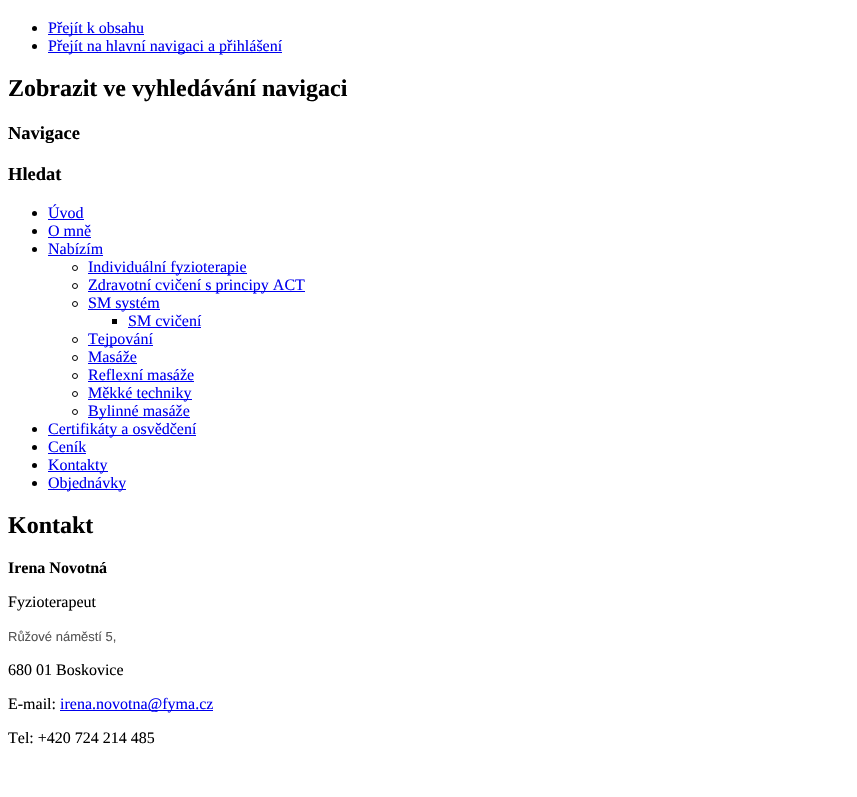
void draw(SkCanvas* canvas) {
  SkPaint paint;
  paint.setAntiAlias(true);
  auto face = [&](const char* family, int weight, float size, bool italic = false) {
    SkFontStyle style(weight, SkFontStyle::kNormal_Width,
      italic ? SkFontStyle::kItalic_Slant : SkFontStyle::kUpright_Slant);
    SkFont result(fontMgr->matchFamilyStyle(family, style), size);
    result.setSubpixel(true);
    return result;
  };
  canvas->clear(0xffffffff);
  paint.setColor(0xff000000);
  canvas->drawCircle(34.5f, 28.5f, 2.5f, paint);
  paint.setColor(0xff0000ee);
  canvas->drawRect(SkRect::MakeXYWH(48, 34, 96, 1), paint);
  paint.setColor(0xff000000);
  canvas->drawCircle(34.5f, 46.5f, 2.5f, paint);
  paint.setColor(0xff0000ee);
  canvas->drawRect(SkRect::MakeXYWH(48, 52, 234, 1), paint);
  paint.setColor(0xff000000);
  canvas->drawCircle(34.5f, 213.5f, 2.5f, paint);
  paint.setColor(0xff0000ee);
  canvas->drawRect(SkRect::MakeXYWH(48, 219, 36, 1), paint);
  paint.setColor(0xff000000);
  canvas->drawCircle(34.5f, 231.5f, 2.5f, paint);
  paint.setColor(0xff0000ee);
  canvas->drawRect(SkRect::MakeXYWH(48, 237, 43, 1), paint);
  paint.setColor(0xff000000);
  canvas->drawCircle(34.5f, 249.5f, 2.5f, paint);
  paint.setColor(0xff0000ee);
  canvas->drawRect(SkRect::MakeXYWH(48, 255, 55, 1), paint);
  paint.setStroke(true);
  paint.setStrokeWidth(1);
  paint.setColor(0xff000000);
  canvas->drawCircle(75, 268, 2.5f, paint);
  paint.setStroke(false);
  paint.setColor(0xff0000ee);
  canvas->drawRect(SkRect::MakeXYWH(88, 273, 159, 1), paint);
  paint.setStroke(true);
  paint.setColor(0xff000000);
  canvas->drawCircle(75, 286, 2.5f, paint);
  paint.setStroke(false);
  paint.setColor(0xff0000ee);
  canvas->drawRect(SkRect::MakeXYWH(88, 291, 217, 1), paint);
  paint.setStroke(true);
  paint.setColor(0xff000000);
  canvas->drawCircle(75, 304, 2.5f, paint);
  paint.setStroke(false);
  {
    const struct { float x, y, w, h; SkColor color; } items[] = {
      {88, 309, 72, 1, 0xff0000ee},
      {112, 319, 5, 5, 0xff000000},
      {128, 327, 73, 1, 0xff0000ee},
    };
    for (auto [x, y, w, h, color] : items) {
      paint.setColor(color);
      canvas->drawRect(SkRect::MakeXYWH(x, y, w, h), paint);
    }
  }
  paint.setStroke(true);
  paint.setColor(0xff000000);
  canvas->drawCircle(75, 340, 2.5f, paint);
  paint.setStroke(false);
  paint.setColor(0xff0000ee);
  canvas->drawRect(SkRect::MakeXYWH(88, 345, 65, 1), paint);
  paint.setStroke(true);
  paint.setColor(0xff000000);
  canvas->drawCircle(75, 358, 2.5f, paint);
  paint.setStroke(false);
  paint.setColor(0xff0000ee);
  canvas->drawRect(SkRect::MakeXYWH(88, 363, 49, 1), paint);
  paint.setStroke(true);
  paint.setColor(0xff000000);
  canvas->drawCircle(75, 376, 2.5f, paint);
  paint.setStroke(false);
  paint.setColor(0xff0000ee);
  canvas->drawRect(SkRect::MakeXYWH(88, 381, 106, 1), paint);
  paint.setStroke(true);
  paint.setColor(0xff000000);
  canvas->drawCircle(75, 394, 2.5f, paint);
  paint.setStroke(false);
  paint.setColor(0xff0000ee);
  canvas->drawRect(SkRect::MakeXYWH(88, 399, 104, 1), paint);
  paint.setStroke(true);
  paint.setColor(0xff000000);
  canvas->drawCircle(75, 412, 2.5f, paint);
  paint.setStroke(false);
  paint.setColor(0xff0000ee);
  canvas->drawRect(SkRect::MakeXYWH(88, 417, 102, 1), paint);
  paint.setColor(0xff000000);
  canvas->drawCircle(34.5f, 429.5f, 2.5f, paint);
  paint.setColor(0xff0000ee);
  canvas->drawRect(SkRect::MakeXYWH(48, 435, 148, 1), paint);
  paint.setColor(0xff000000);
  canvas->drawCircle(34.5f, 447.5f, 2.5f, paint);
  paint.setColor(0xff0000ee);
  canvas->drawRect(SkRect::MakeXYWH(48, 453, 38, 1), paint);
  paint.setColor(0xff000000);
  canvas->drawCircle(34.5f, 465.5f, 2.5f, paint);
  paint.setColor(0xff0000ee);
  canvas->drawRect(SkRect::MakeXYWH(48, 471, 60, 1), paint);
  paint.setColor(0xff000000);
  canvas->drawCircle(34.5f, 483.5f, 2.5f, paint);
  paint.setColor(0xff0000ee);
  canvas->drawRect(SkRect::MakeXYWH(48, 489, 78, 1), paint);
  canvas->drawRect(SkRect::MakeXYWH(60, 710, 153, 1), paint);
  auto f0 = face("Liberation Serif", 400, 16);
  canvas->drawString("Přejít k obsahu", 48, 33, f0, paint);
  canvas->drawString("Přejít na hlavní navigaci a přihlášení", 48, 51, f0, paint);
  auto f1 = face("Liberation Serif", 700, 24);
  paint.setColor(0xff000000);
  canvas->drawString("Zobrazit ve vyhledávání navigaci", 8, 96, f1, paint);
  auto f2 = face("Liberation Serif", 700, 18.5f);
  canvas->drawString("Navigace", 8, 139, f2, paint);
  canvas->drawString("Hledat", 8, 180, f2, paint);
  paint.setColor(0xff0000ee);
  {
    const struct { const char* s; float x, y; } items[] = {
      {"Úvod", 48, 218},
      {"O mně", 48, 236},
      {"Nabízím", 48, 254},
      {"Individuální fyzioterapie", 88, 272},
      {"Zdravotní cvičení s principy ACT", 88, 290},
      {"SM systém", 88, 308},
      {"SM cvičení", 128, 326},
      {"Tejpování", 88, 344},
      {"Masáže", 88, 362},
      {"Reflexní masáže", 88, 380},
      {"Měkké techniky", 88, 398},
      {"Bylinné masáže", 88, 416},
      {"Certifikáty a osvědčení", 48, 434},
      {"Ceník", 48, 452},
      {"Kontakty", 48, 470},
      {"Objednávky", 48, 488},
    };
    for (auto [s, x, y] : items) {
      canvas->drawString(s, x, y, f0, paint);
    }
  }
  paint.setColor(0xff000000);
  canvas->drawString("Kontakt", 8, 533, f1, paint);
  auto f3 = face("Liberation Serif", 700, 16);
  canvas->drawString("Irena Novotná", 8, 573, f3, paint);
  canvas->drawString("Fyzioterapeut", 8, 607, f0, paint);
  auto f4 = face("Liberation Sans", 400, 13);
  paint.setColor(0xff545454);
  canvas->drawString("Růžové náměstí 5,", 8, 641, f4, paint);
  paint.setColor(0xff000000);
  canvas->drawString("680 01 Boskovice", 8, 675, f0, paint);
  canvas->drawString("E-mail:", 8, 709, f0, paint);
  paint.setColor(0xff0000ee);
  canvas->drawString("irena.novotna@fyma.cz", 60, 709, f0, paint);
  paint.setColor(0xff000000);
  canvas->drawString("Tel: +420 724 214 485", 8, 743, f0, paint);
}
